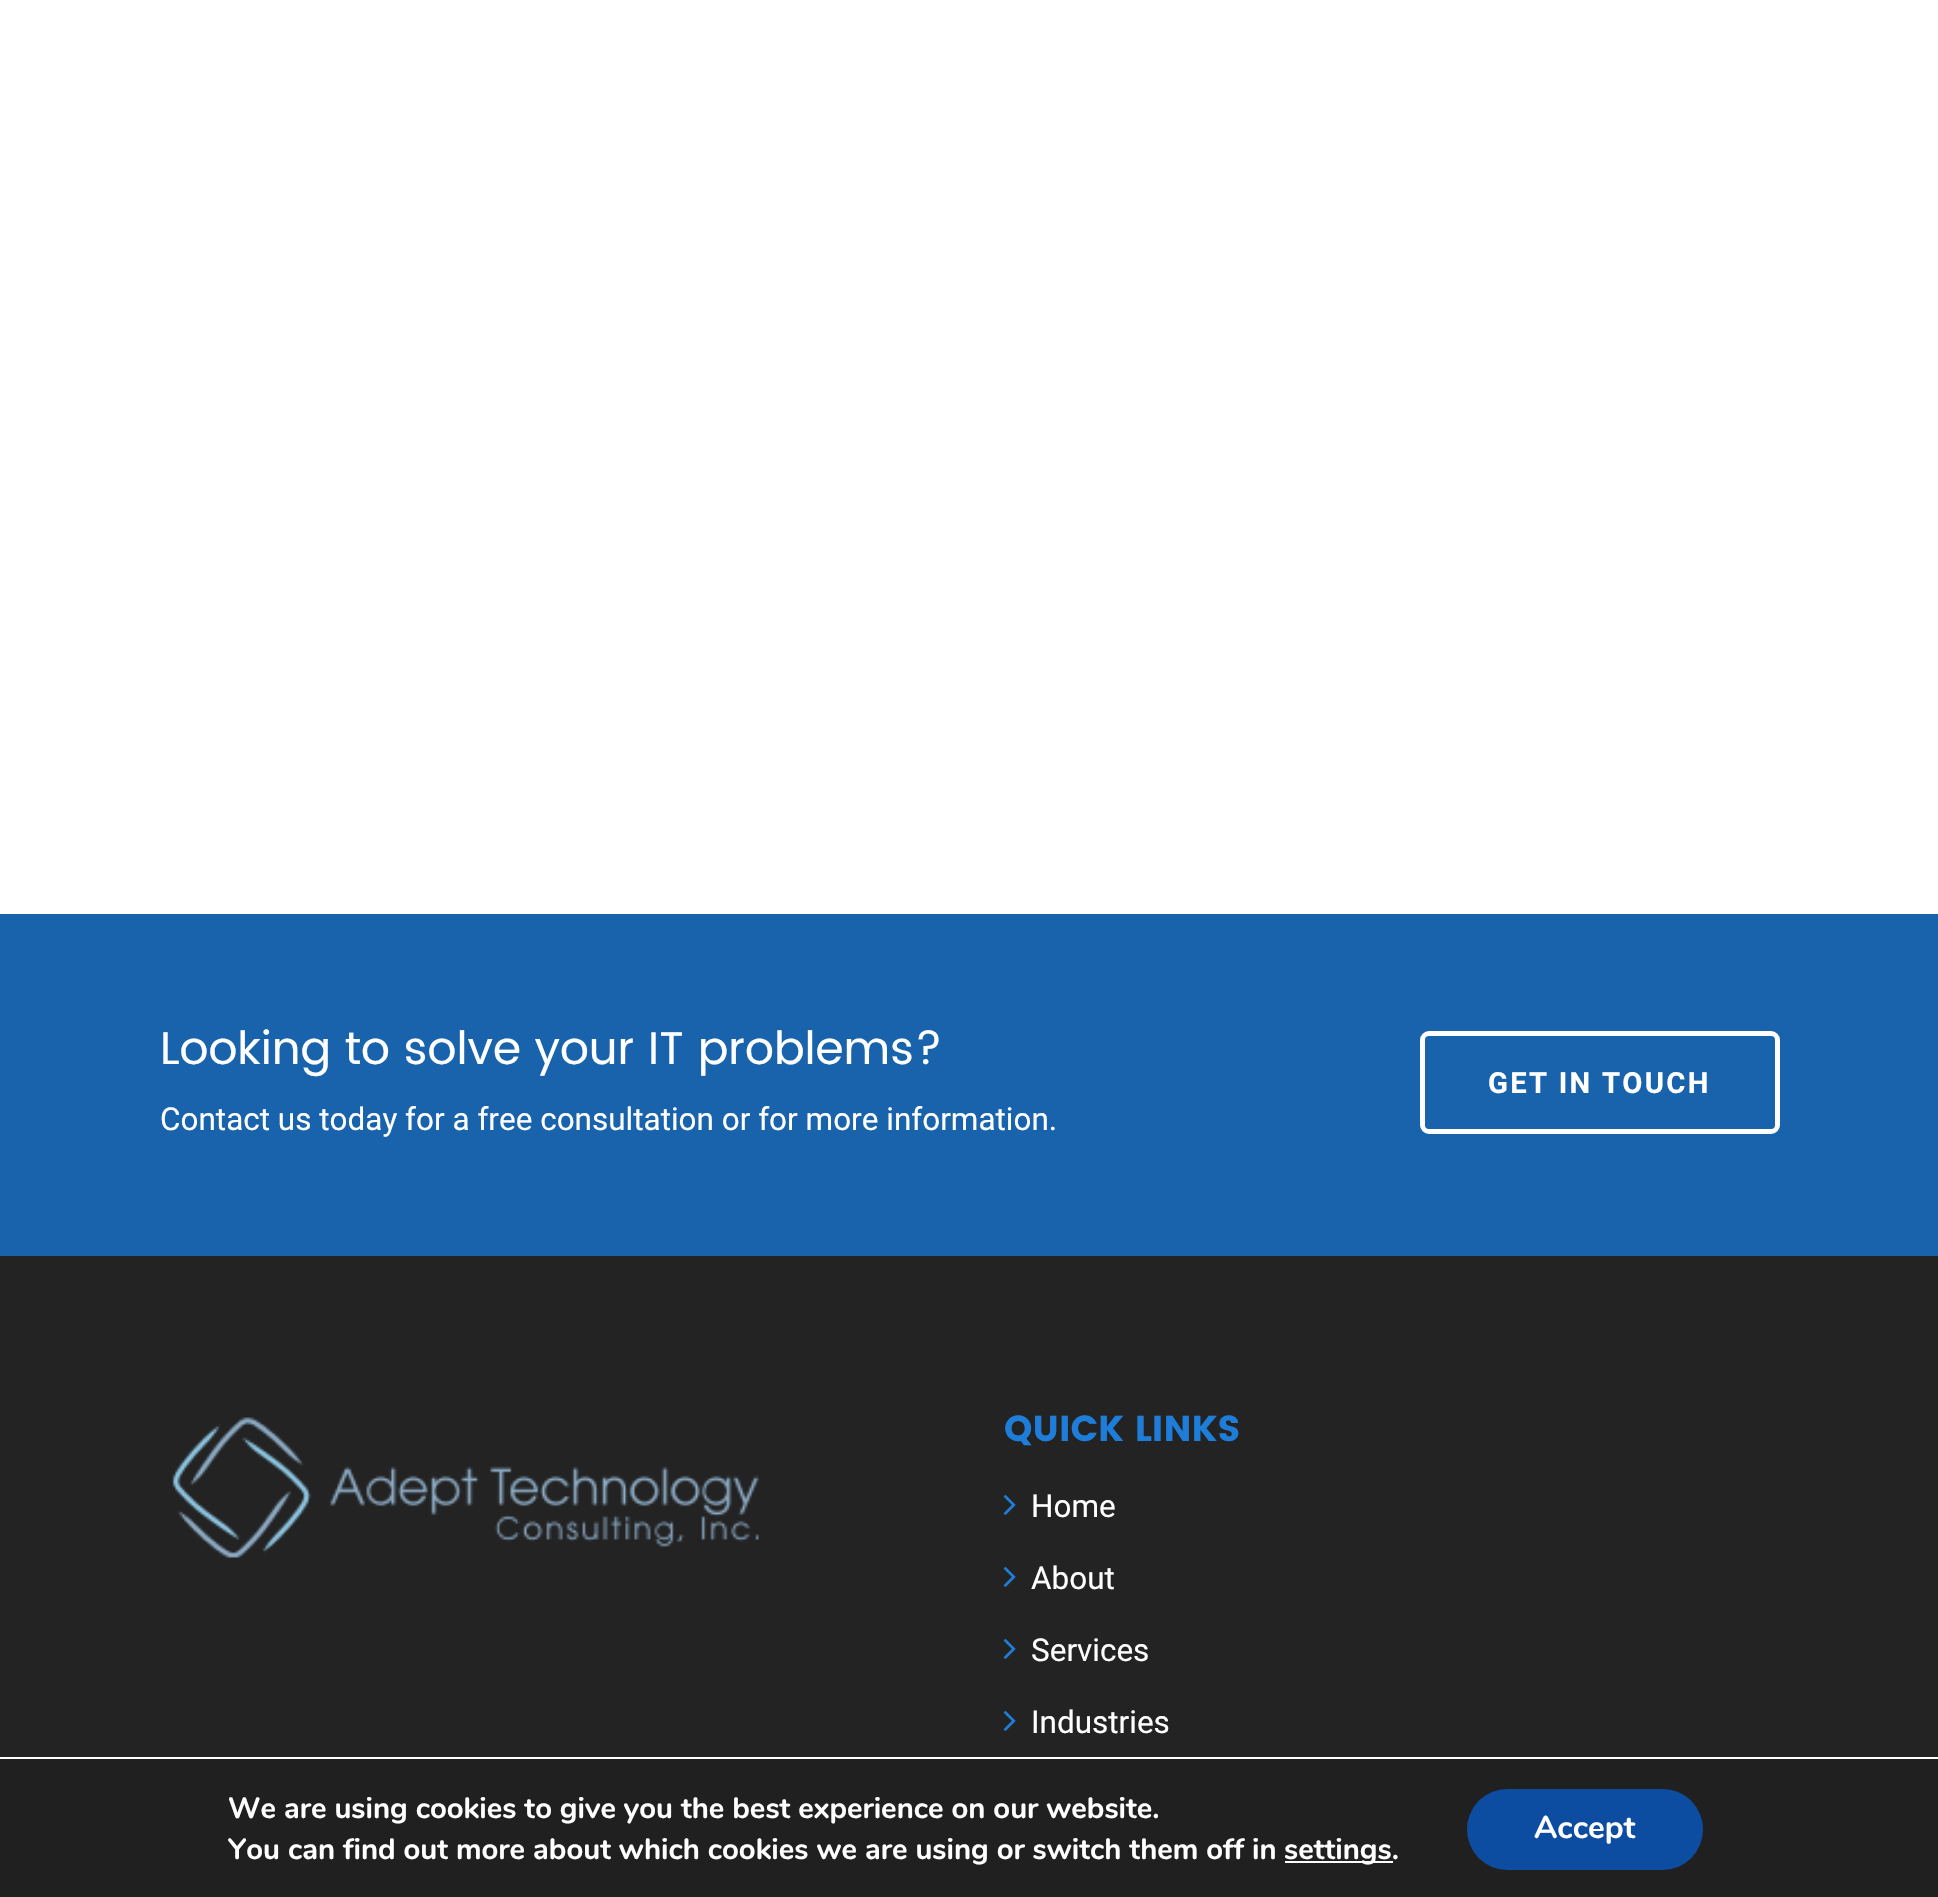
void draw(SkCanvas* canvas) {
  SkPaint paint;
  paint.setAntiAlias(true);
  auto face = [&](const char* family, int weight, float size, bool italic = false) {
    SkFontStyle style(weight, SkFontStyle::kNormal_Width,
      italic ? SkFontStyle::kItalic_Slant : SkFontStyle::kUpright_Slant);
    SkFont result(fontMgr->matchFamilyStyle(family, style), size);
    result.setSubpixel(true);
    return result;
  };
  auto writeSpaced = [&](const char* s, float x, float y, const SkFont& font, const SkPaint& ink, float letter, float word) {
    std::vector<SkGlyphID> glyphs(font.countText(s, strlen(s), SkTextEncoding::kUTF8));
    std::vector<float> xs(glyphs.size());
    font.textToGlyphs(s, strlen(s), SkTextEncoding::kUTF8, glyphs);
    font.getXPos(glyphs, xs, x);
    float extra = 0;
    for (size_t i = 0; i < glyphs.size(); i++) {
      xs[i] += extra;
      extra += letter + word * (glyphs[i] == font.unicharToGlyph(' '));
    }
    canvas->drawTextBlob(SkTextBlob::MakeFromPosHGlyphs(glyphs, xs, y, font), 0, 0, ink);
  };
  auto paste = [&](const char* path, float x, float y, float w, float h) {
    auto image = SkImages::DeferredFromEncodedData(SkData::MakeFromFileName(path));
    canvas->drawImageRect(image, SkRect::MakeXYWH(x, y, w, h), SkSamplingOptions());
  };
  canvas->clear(0xffffffff);
  paint.setColor(0xff1863ab);
  canvas->drawRect(SkRect::MakeXYWH(0, 914, 1938, 342), paint);
  paint.setStroke(true);
  paint.setStrokeWidth(5);
  paint.setColor(0xffffffff);
  canvas->drawRoundRect(SkRect::MakeXYWH(1422.5f, 1033.5f, 355, 98), 6.5f, 6.5f, paint);
  paint.setStroke(false);
  paint.setColor(0xff232323);
  canvas->drawRect(SkRect::MakeXYWH(0, 1256, 1938, 501), paint);
  paste("img/1.png", 172, 1417, 587, 141);
  paste("img/2.png", 1003, 1495, 13, 20);
  paste("img/2.png", 1003, 1567, 13, 20);
  paste("img/2.png", 1003, 1639, 13, 20);
  paste("img/2.png", 1003, 1711, 13, 20);
  paint.setColor(0xff202020);
  canvas->drawRect(SkRect::MakeXYWH(0, 1759, 1938, 138), paint);
  paint.setColor(0xffffffff);
  canvas->drawRect(SkRect::MakeXYWH(1285, 1861, 108, 2), paint);
  paint.setColor(0xff0c4da2);
  canvas->drawRoundRect(SkRect::MakeXYWH(1467, 1789, 236, 81), 40.5f, 40.5f, paint);
  auto f0 = face("Poppins", 400, 45.7f);
  paint.setColor(0xffffffff);
  canvas->drawString("Looking to solve your IT problems?", 160, 1064, f0, paint);
  auto f1 = face("Roboto", 700, 29.25f);
  writeSpaced("GET IN TOUCH", 1488, 1093, f1, paint, 2.25f, 0);
  auto f2 = face("Roboto", 400, 31.5f);
  canvas->drawString("Contact us today for a free consultation or for more information.", 160, 1130, f2, paint);
  auto f3 = face("Poppins", 700, 36);
  paint.setColor(0xff1e7dd8);
  canvas->drawString("QUICK LINKS", 1004, 1441, f3, paint);
  paint.setColor(0xffffffff);
  {
    const struct { const char* s; float x, y; } items[] = {
      {"Home", 1031, 1517},
      {"About", 1031, 1589},
      {"Services", 1031, 1661},
      {"Industries", 1031, 1733},
    };
    for (auto [s, x, y] : items) {
      canvas->drawString(s, x, y, f2, paint);
    }
  }
  auto f4 = face("Nunito", 700, 29.25f);
  {
    const struct { const char* s; float x, y; } items[] = {
      {"We are using cookies to give you the best experience on our website.", 228, 1818},
      {"You can find out more about which cookies we are using or switch them off in", 228, 1859},
      {"settings.", 1284, 1859},
    };
    for (auto [s, x, y] : items) {
      canvas->drawString(s, x, y, f4, paint);
    }
  }
  auto f5 = face("Nunito", 700, 31.5f);
  canvas->drawString("Accept", 1534, 1838, f5, paint);
}
